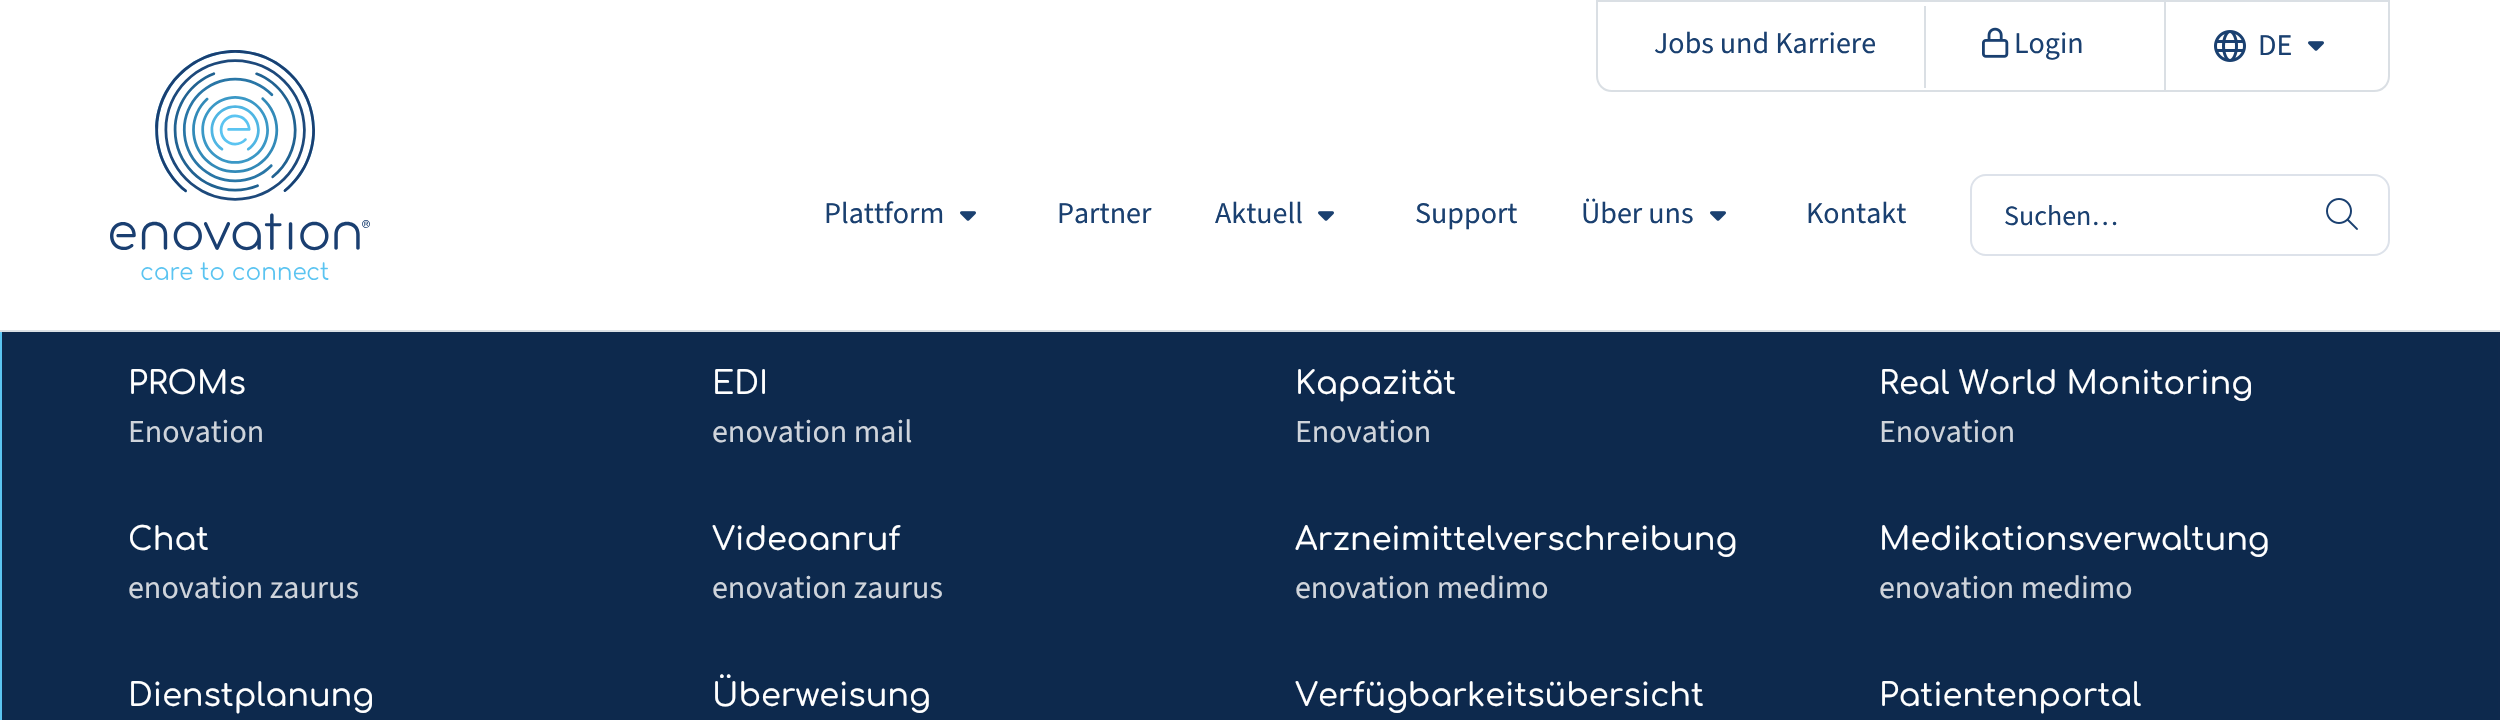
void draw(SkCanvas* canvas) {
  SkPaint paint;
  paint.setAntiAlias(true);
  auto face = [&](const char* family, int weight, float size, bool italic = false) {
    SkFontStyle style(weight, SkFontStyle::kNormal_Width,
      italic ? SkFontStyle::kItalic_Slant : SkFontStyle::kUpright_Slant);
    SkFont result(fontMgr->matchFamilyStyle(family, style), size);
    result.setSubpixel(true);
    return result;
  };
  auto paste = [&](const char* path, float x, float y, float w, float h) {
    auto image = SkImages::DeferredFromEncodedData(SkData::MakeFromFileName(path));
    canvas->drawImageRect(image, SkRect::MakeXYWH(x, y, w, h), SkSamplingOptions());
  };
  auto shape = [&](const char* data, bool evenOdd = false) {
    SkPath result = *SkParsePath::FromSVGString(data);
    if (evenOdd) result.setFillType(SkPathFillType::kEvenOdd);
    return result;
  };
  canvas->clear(0xff0d294d);
  paint.setStroke(true);
  paint.setStrokeWidth(2);
  paint.setColor(0xff5bc5f2);
  canvas->drawRect(SkRect::MakeXYWH(1, -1, 2498, 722), paint);
  paint.setStroke(false);
  paint.setColor(0xffffffff);
  canvas->drawRect(SkRect::MakeXYWH(0, 0, 2500, 330), paint);
  paint.setColor(0xffdadfe4);
  canvas->drawRect(SkRect::MakeXYWH(0, 330, 2500, 2), paint);
  paste("img/1.png", 110, 50, 260, 230);
  paint.setStroke(true);
  canvas->drawPath(shape("M1597 1H2389V76C2389 84.5 2382.5 91 2374 91H1612C1603.5 91 1597 84.5 1597 76Z"), paint);
  paint.setStroke(false);
  canvas->drawRect(SkRect::MakeXYWH(1924, 6, 2, 82), paint);
  paste("img/2.png", 1982, 27, 27, 31);
  canvas->drawRect(SkRect::MakeXYWH(2164, 2, 2, 88), paint);
  paste("img/3.png", 2214, 30, 32, 32);
  paste("img/4.png", 2308, 41, 16, 10);
  paste("img/4.png", 960, 211, 16, 10);
  paste("img/4.png", 1318, 211, 16, 10);
  paste("img/4.png", 1710, 211, 16, 10);
  paint.setStroke(true);
  paint.setColor(0xffdde2ea);
  canvas->drawRoundRect(SkRect::MakeXYWH(1971, 175, 418, 80), 15, 15, paint);
  paste("img/5.png", 2326, 198, 32, 32);
  paint.setStroke(false);
  paint.setColor(0xff0e294d);
  canvas->drawRect(SkRect::MakeXYWH(2498, 332, 2, 388), paint);
  auto f0 = face("Source Sans 3", 400, 30);
  paint.setColor(0xff1a4070);
  {
    const struct { const char* s; float x, y; } items[] = {
      {"Jobs und Karriere", 1654, 53},
      {"Login", 2014, 53},
      {"DE", 2258, 55},
      {"Plattform", 824, 223},
      {"Partner", 1057, 223},
      {"Aktuell", 1215, 223},
      {"Support", 1415, 223},
      {"Über uns", 1581, 223},
      {"Kontakt", 1806, 223},
    };
    for (auto [s, x, y] : items) {
      canvas->drawString(s, x, y, f0, paint);
    }
  }
  auto f1 = face("Source Sans 3", 400, 28);
  canvas->drawString("Suchen…", 2004, 225, f1, paint);
  auto f2 = face("Comfortaa", 500, 32);
  paint.setColor(0xffffffff);
  canvas->drawString("PROMs", 128, 394, f2, paint);
  auto f3 = face("Source Sans 3", 400, 32);
  paint.setColor(0xffcfd4db);
  canvas->drawString("Enovation", 128, 442, f3, paint);
  paint.setColor(0xffffffff);
  canvas->drawString("EDI", 712, 394, f2, paint);
  paint.setColor(0xffcfd4db);
  canvas->drawString("enovation mail", 712, 442, f3, paint);
  paint.setColor(0xffffffff);
  canvas->drawString("Kapazität", 1295, 394, f2, paint);
  paint.setColor(0xffcfd4db);
  canvas->drawString("Enovation", 1295, 442, f3, paint);
  paint.setColor(0xffffffff);
  canvas->drawString("Real World Monitoring", 1879, 394, f2, paint);
  paint.setColor(0xffcfd4db);
  canvas->drawString("Enovation", 1879, 442, f3, paint);
  paint.setColor(0xffffffff);
  canvas->drawString("Chat", 128, 550, f2, paint);
  paint.setColor(0xffcfd4db);
  canvas->drawString("enovation zaurus", 128, 598, f3, paint);
  paint.setColor(0xffffffff);
  canvas->drawString("Videoanruf", 712, 550, f2, paint);
  paint.setColor(0xffcfd4db);
  canvas->drawString("enovation zaurus", 712, 598, f3, paint);
  paint.setColor(0xffffffff);
  canvas->drawString("Arzneimittelverschreibung", 1295, 550, f2, paint);
  paint.setColor(0xffcfd4db);
  canvas->drawString("enovation medimo", 1295, 598, f3, paint);
  paint.setColor(0xffffffff);
  canvas->drawString("Medikationsverwaltung", 1879, 550, f2, paint);
  paint.setColor(0xffcfd4db);
  canvas->drawString("enovation medimo", 1879, 598, f3, paint);
  paint.setColor(0xffffffff);
  {
    const struct { const char* s; float x, y; } items[] = {
      {"Dienstplanung", 128, 706},
      {"Überweisung", 712, 706},
      {"Verfügbarkeitsübersicht", 1295, 706},
      {"Patientenportal", 1879, 706},
    };
    for (auto [s, x, y] : items) {
      canvas->drawString(s, x, y, f2, paint);
    }
  }
}
